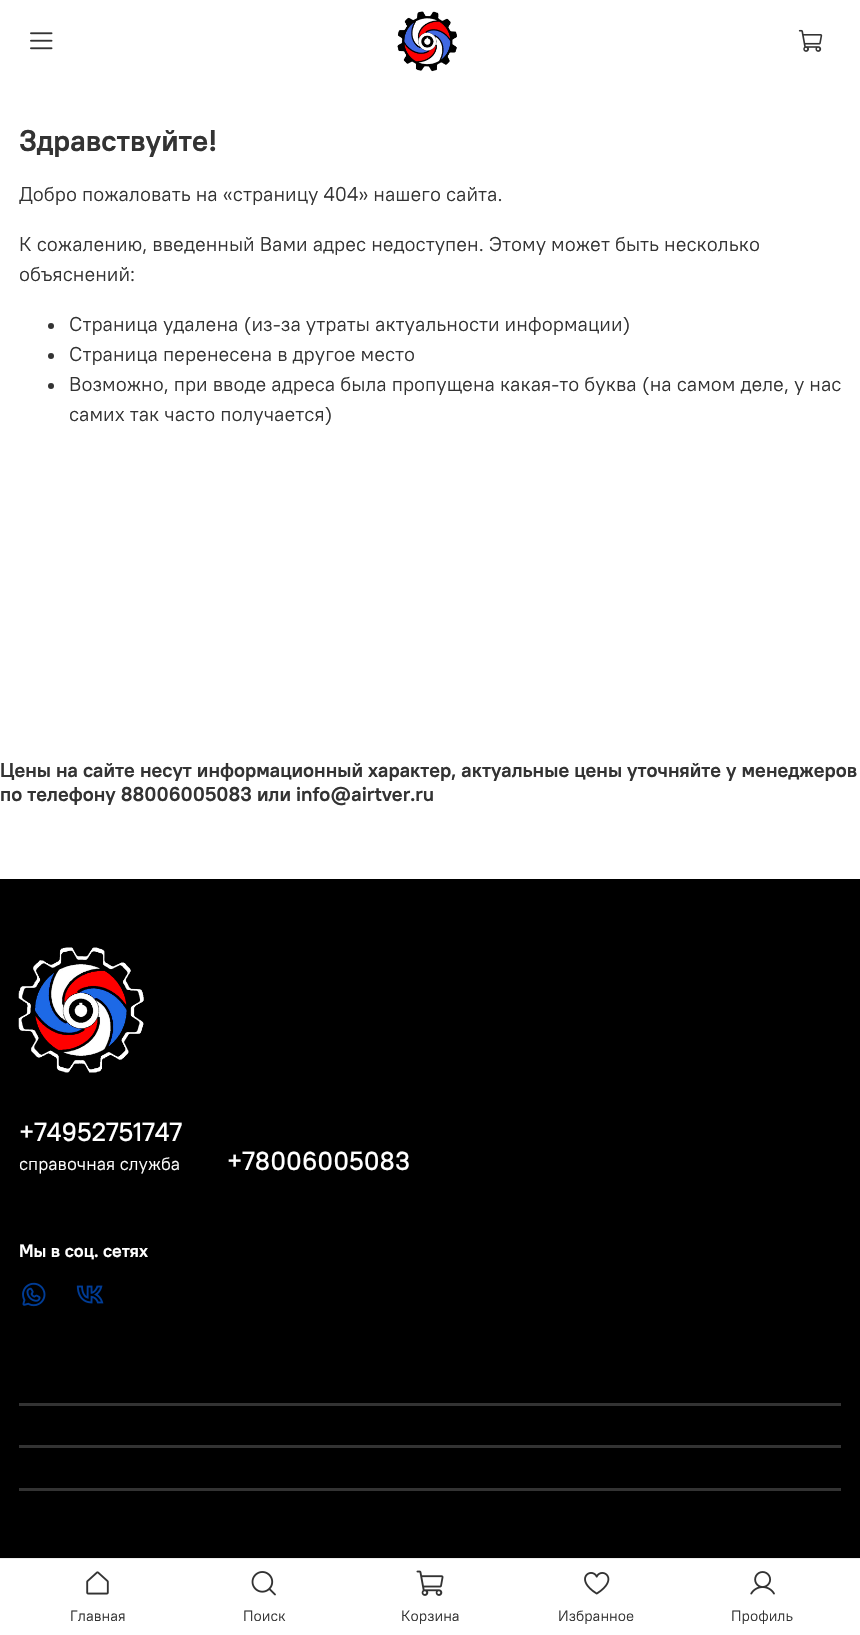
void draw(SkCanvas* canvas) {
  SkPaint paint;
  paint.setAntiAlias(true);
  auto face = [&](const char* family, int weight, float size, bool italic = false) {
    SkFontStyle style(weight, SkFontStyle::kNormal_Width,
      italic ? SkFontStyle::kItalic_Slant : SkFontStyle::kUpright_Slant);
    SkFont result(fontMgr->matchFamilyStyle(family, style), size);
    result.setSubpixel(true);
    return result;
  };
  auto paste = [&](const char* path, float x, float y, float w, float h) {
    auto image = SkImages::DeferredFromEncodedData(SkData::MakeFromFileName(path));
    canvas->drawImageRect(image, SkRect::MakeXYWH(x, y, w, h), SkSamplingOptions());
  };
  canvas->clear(0xffffffff);
  paste("img/1.png", 30, 32, 23, 18);
  paste("img/2.png", 397, 11, 60, 61);
  paste("img/3.png", 798, 29, 25, 23);
  paint.setColor(0xff333333);
  canvas->drawCircle(51, 326, 3, paint);
  canvas->drawCircle(51, 356, 3, paint);
  canvas->drawCircle(51, 386, 3, paint);
  paint.setColor(0xff000000);
  canvas->drawRect(SkRect::MakeXYWH(0, 879, 860, 679), paint);
  paste("img/4.png", 18, 947, 126, 126);
  paste("img/5.png", 22, 1282, 24, 25);
  paste("img/6.png", 76, 1285, 28, 19);
  {
    const struct { float x, y, w, h; SkColor color; } items[] = {
      {19, 1403, 822, 3, 0xff333333},
      {19, 1445, 822, 3, 0xff333333},
      {19, 1488, 822, 3, 0xff333333},
      {0, 1558, 860, 1, 0xffededed},
    };
    for (auto [x, y, w, h, color] : items) {
      paint.setColor(color);
      canvas->drawRect(SkRect::MakeXYWH(x, y, w, h), paint);
    }
  }
  paste("img/7.png", 86, 1571, 23, 24);
  paste("img/8.png", 251, 1571, 25, 25);
  paste("img/9.png", 416, 1570, 28, 26);
  paste("img/10.png", 584, 1572, 26, 23);
  paste("img/11.png", 750, 1571, 25, 24);
  auto f0 = face("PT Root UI", 700, 30);
  paint.setColor(0xff333333);
  canvas->drawString("Здравствуйте!", 19, 151, f0, paint);
  auto f1 = face("PT Root UI", 400, 20);
  {
    const struct { const char* s; float x, y; } items[] = {
      {"Добро пожаловать на «страницу 404» нашего сайта.", 19, 201},
      {"К сожалению, введенный Вами адрес недоступен. Этому может быть несколько", 19, 251},
      {"объяснений:", 19, 281},
      {"Страница удалена (из-за утраты актуальности информации)", 69, 331},
      {"Страница перенесена в другое место", 69, 361},
      {"Возможно, при вводе адреса была пропущена какая-то буква (на самом деле, у нас", 69, 391},
      {"самих так часто получается)", 69, 421},
    };
    for (auto [s, x, y] : items) {
      canvas->drawString(s, x, y, f1, paint);
    }
  }
  auto f2 = face("PT Root UI", 700, 20);
  canvas->drawString("Цены на сайте несут информационный характер, актуальные цены уточняйте у менеджеров", 0, 777, f2, paint);
  canvas->drawString("по телефону 88006005083 или info@airtver.ru", 0, 801, f2, paint);
  auto f3 = face("PT Root UI", 500, 26);
  paint.setColor(0xffffffff);
  canvas->drawString("+74952751747", 19, 1141, f3, paint);
  auto f4 = face("PT Root UI", 400, 18);
  canvas->drawString("справочная служба", 19, 1170, f4, paint);
  canvas->drawString("+78006005083", 227, 1170, f3, paint);
  auto f5 = face("PT Root UI", 700, 18);
  canvas->drawString("Мы в соц. сетях", 19, 1257, f5, paint);
  auto f6 = face("PT Root UI", 400, 15);
  paint.setColor(0xff333333);
  {
    const struct { const char* s; float x, y; } items[] = {
      {"Главная", 70, 1621},
      {"Поиск", 243, 1621},
      {"Корзина", 401, 1621},
      {"Избранное", 558, 1621},
      {"Профиль", 731, 1621},
    };
    for (auto [s, x, y] : items) {
      canvas->drawString(s, x, y, f6, paint);
    }
  }
}
